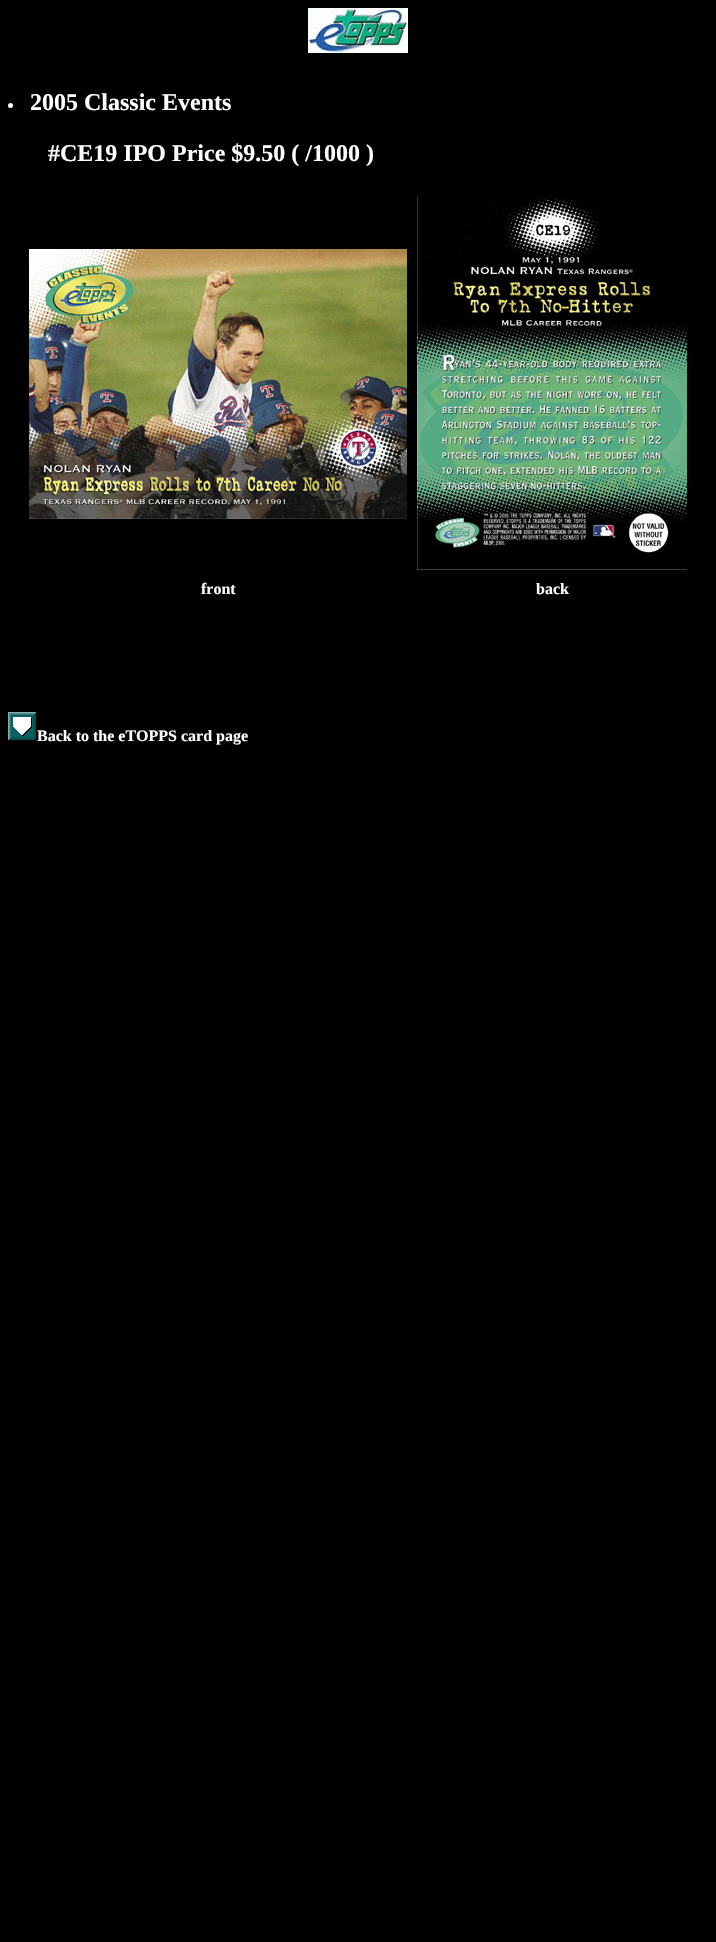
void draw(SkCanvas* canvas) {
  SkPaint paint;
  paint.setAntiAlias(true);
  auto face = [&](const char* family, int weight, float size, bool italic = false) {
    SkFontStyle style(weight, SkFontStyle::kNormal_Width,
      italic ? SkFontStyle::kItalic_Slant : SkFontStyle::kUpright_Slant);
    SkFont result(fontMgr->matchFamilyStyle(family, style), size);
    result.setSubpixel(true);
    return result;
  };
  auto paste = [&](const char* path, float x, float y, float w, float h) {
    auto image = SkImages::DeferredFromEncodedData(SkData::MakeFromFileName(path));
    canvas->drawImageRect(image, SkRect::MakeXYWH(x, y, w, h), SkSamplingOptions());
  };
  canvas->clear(0xff000000);
  paste("img/1.png", 308, 8, 100, 45);
  paint.setColor(0xffffffff);
  canvas->drawCircle(10.5f, 105.5f, 2.5f, paint);
  paste("img/2.png", 29, 249, 378, 270);
  paste("img/3.png", 417, 197, 270, 373);
  paste("img/4.png", 8, 712, 29, 29);
  auto f0 = face("Liberation Serif", 700, 24);
  canvas->drawString("2005 Classic Events", 30, 110, f0, paint);
  canvas->drawString("#CE19 IPO Price $9.50 ( /1000 )", 48, 161, f0, paint);
  auto f1 = face("Liberation Serif", 700, 16);
  {
    const struct { const char* s; float x, y; } items[] = {
      {"front", 201, 594},
      {"back", 536, 594},
      {"Back to the eTOPPS card page", 37, 741},
    };
    for (auto [s, x, y] : items) {
      canvas->drawString(s, x, y, f1, paint);
    }
  }
}
